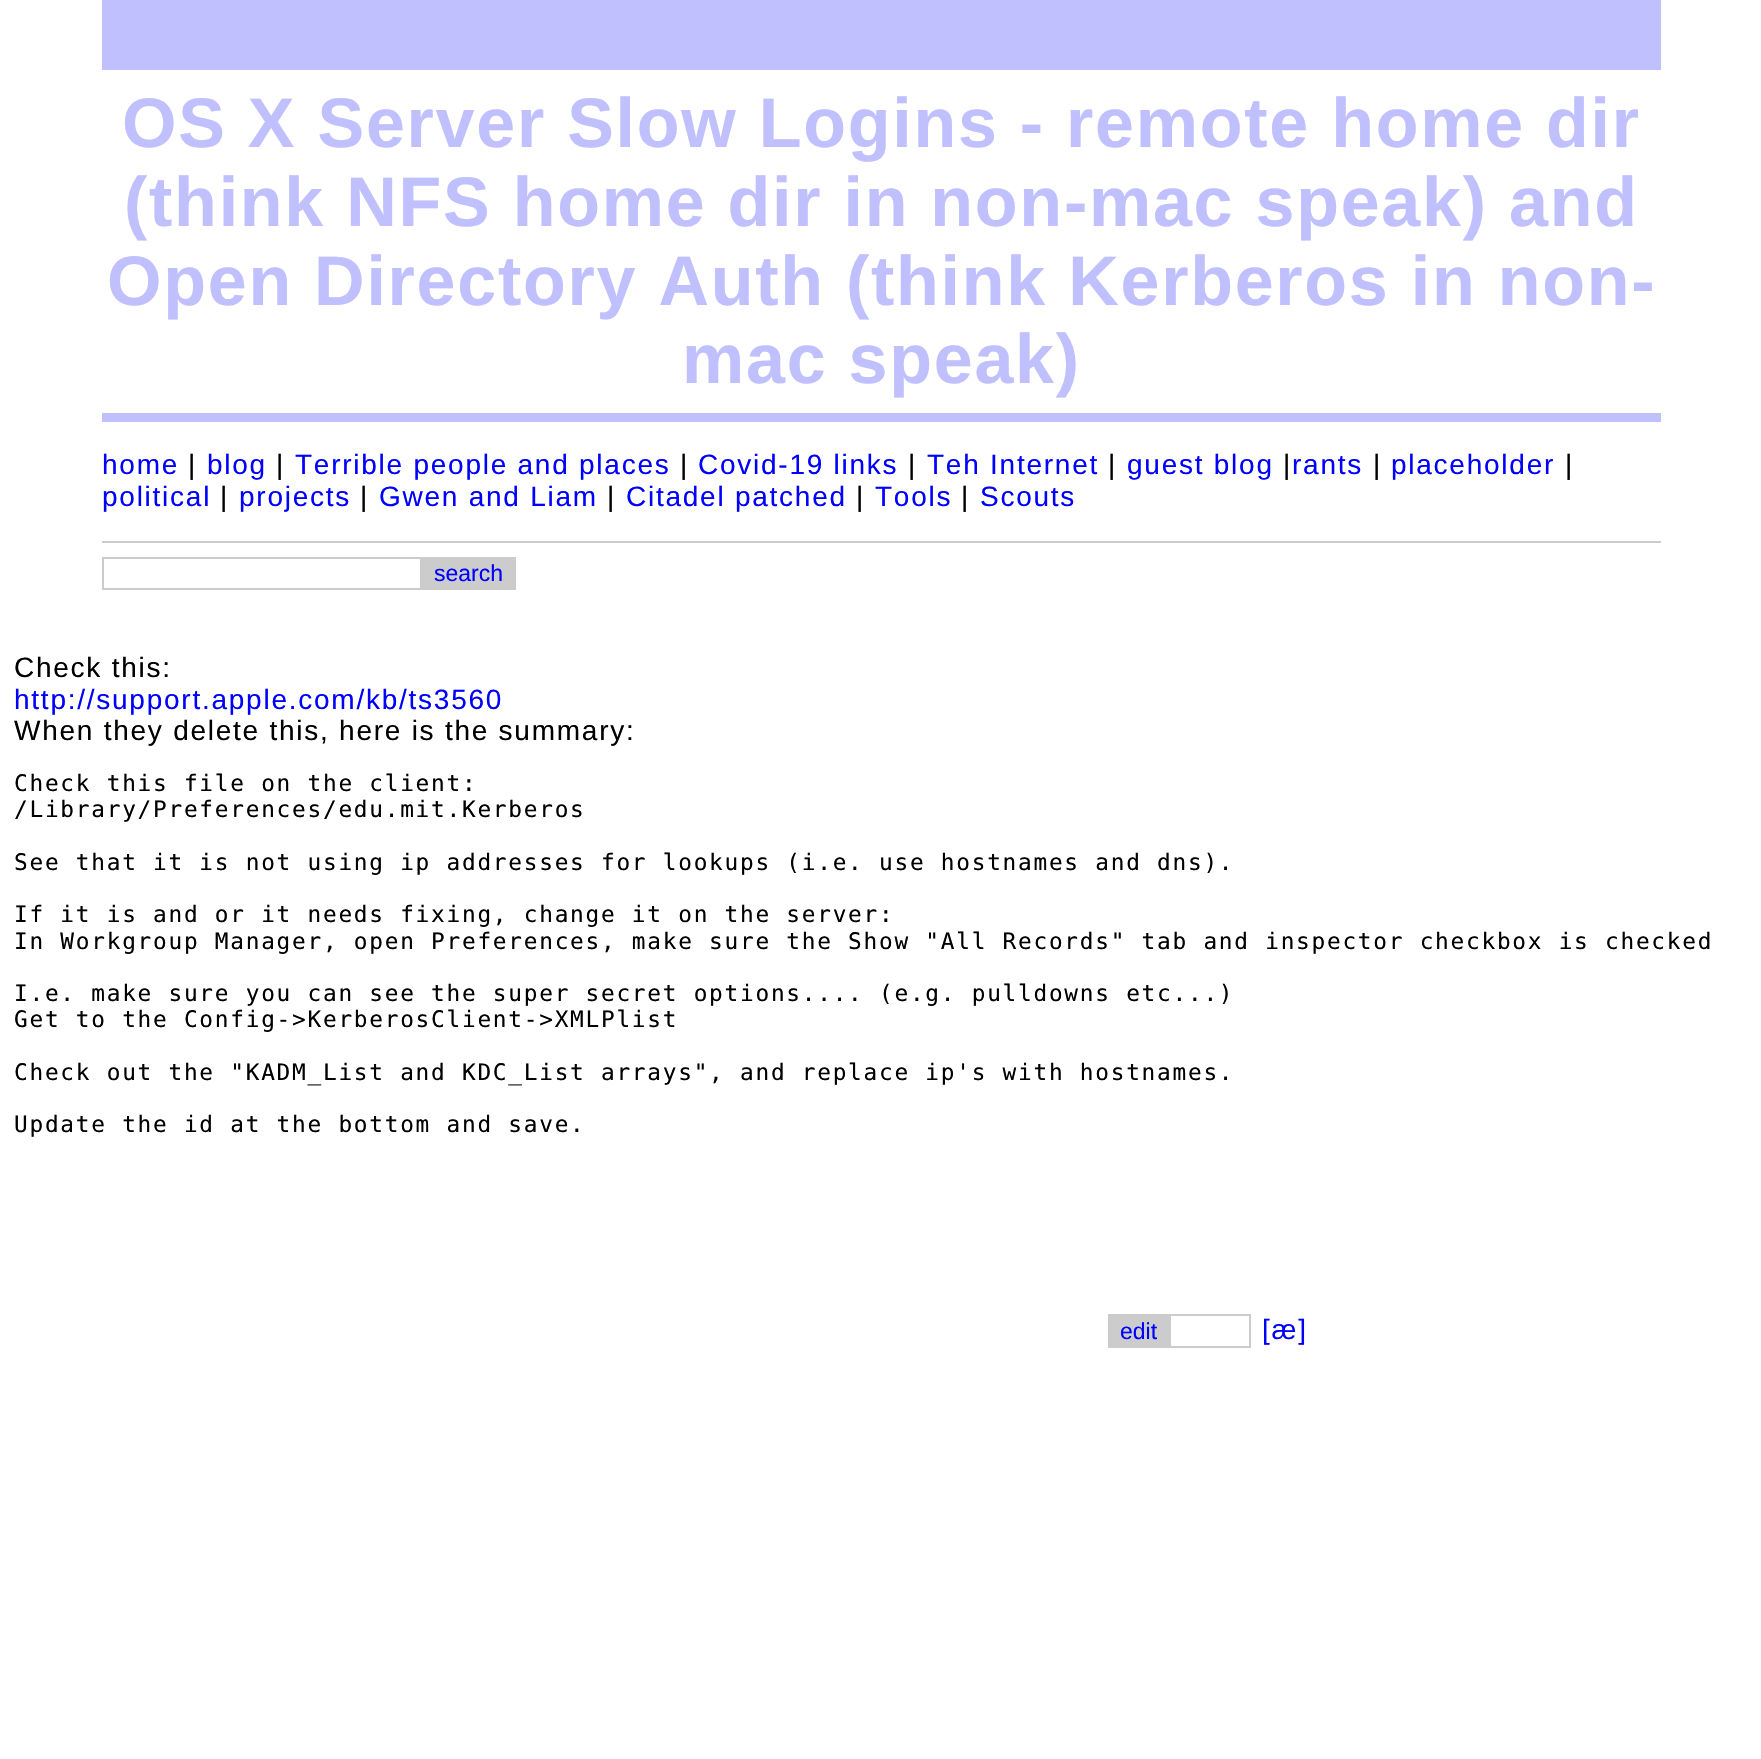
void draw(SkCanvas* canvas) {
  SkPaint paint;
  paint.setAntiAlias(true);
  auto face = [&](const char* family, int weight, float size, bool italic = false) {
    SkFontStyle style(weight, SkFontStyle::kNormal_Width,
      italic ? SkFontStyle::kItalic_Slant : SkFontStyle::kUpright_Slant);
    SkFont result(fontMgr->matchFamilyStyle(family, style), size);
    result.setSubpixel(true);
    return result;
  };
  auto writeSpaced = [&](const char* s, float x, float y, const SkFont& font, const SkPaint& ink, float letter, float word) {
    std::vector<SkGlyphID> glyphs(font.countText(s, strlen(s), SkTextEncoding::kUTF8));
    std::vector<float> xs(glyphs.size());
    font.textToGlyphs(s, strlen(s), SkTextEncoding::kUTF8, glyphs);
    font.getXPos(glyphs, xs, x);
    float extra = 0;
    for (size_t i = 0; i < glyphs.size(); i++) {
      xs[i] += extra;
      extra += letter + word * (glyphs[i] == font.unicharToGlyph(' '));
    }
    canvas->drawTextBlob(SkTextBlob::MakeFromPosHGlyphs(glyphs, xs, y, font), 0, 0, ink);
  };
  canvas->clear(0xffffffff);
  {
    const struct { float x, y, w, h; SkColor color; } items[] = {
      {102, 0, 1559, 70, 0xffc0c0ff},
      {102, 413, 1559, 9, 0xffc0c0ff},
      {102, 541, 1559, 2, 0xffcccccc},
    };
    for (auto [x, y, w, h, color] : items) {
      paint.setColor(color);
      canvas->drawRect(SkRect::MakeXYWH(x, y, w, h), paint);
    }
  }
  paint.setStroke(true);
  paint.setStrokeWidth(2);
  canvas->drawRect(SkRect::MakeXYWH(103, 558, 318, 31), paint);
  paint.setStroke(false);
  canvas->drawRect(SkRect::MakeXYWH(422, 557, 94, 33), paint);
  canvas->drawRect(SkRect::MakeXYWH(1108, 1314, 61, 34), paint);
  paint.setStroke(true);
  canvas->drawRect(SkRect::MakeXYWH(1170, 1315, 80, 32), paint);
  auto f0 = face("Liberation Sans", 700, 70);
  paint.setStroke(false);
  paint.setColor(0xffc0c0ff);
  {
    const struct { const char* s; float x, y; } items[] = {
      {"OS X Server Slow Logins - remote home dir", 122, 147},
      {"(think NFS home dir in non-mac speak) and", 124, 226},
      {"Open Directory Auth (think Kerberos in non-", 107, 305},
      {"mac speak)", 682, 383},
    };
    for (auto [s, x, y] : items) {
      writeSpaced(s, x, y, f0, paint, 1.75f, 0);
    }
  }
  auto f1 = face("Liberation Sans", 400, 28);
  paint.setColor(0xff0000ff);
  writeSpaced("home", 102, 474, f1, paint, 1.75f, 0);
  paint.setColor(0xff000000);
  writeSpaced("|", 188, 474, f1, paint, 1.75f, 0);
  paint.setColor(0xff0000ff);
  writeSpaced("blog", 207, 474, f1, paint, 1.75f, 0);
  paint.setColor(0xff000000);
  writeSpaced("|", 276, 474, f1, paint, 1.75f, 0);
  paint.setColor(0xff0000ff);
  writeSpaced("Terrible people and places", 295, 474, f1, paint, 1.75f, 0);
  paint.setColor(0xff000000);
  writeSpaced("|", 680, 474, f1, paint, 1.75f, 0);
  paint.setColor(0xff0000ff);
  writeSpaced("Covid-19 links", 698, 474, f1, paint, 1.75f, 0);
  paint.setColor(0xff000000);
  writeSpaced("|", 908, 474, f1, paint, 1.75f, 0);
  paint.setColor(0xff0000ff);
  writeSpaced("Teh Internet", 927, 474, f1, paint, 1.75f, 0);
  paint.setColor(0xff000000);
  writeSpaced("|", 1108, 474, f1, paint, 1.75f, 0);
  paint.setColor(0xff0000ff);
  writeSpaced("guest blog", 1127, 474, f1, paint, 1.75f, 0);
  paint.setColor(0xff000000);
  writeSpaced("|", 1283, 474, f1, paint, 1.75f, 0);
  paint.setColor(0xff0000ff);
  writeSpaced("rants", 1292, 474, f1, paint, 1.75f, 0);
  paint.setColor(0xff000000);
  writeSpaced("|", 1373, 474, f1, paint, 1.75f, 0);
  paint.setColor(0xff0000ff);
  writeSpaced("placeholder", 1391, 474, f1, paint, 1.75f, 0);
  paint.setColor(0xff000000);
  writeSpaced("|", 1565, 474, f1, paint, 1.75f, 0);
  paint.setColor(0xff0000ff);
  writeSpaced("political", 102, 506, f1, paint, 1.75f, 0);
  paint.setColor(0xff000000);
  writeSpaced("|", 220, 506, f1, paint, 1.75f, 0);
  paint.setColor(0xff0000ff);
  writeSpaced("projects", 239, 506, f1, paint, 1.75f, 0);
  paint.setColor(0xff000000);
  writeSpaced("|", 360, 506, f1, paint, 1.75f, 0);
  paint.setColor(0xff0000ff);
  writeSpaced("Gwen and Liam", 379, 506, f1, paint, 1.75f, 0);
  paint.setColor(0xff000000);
  writeSpaced("|", 607, 506, f1, paint, 1.75f, 0);
  paint.setColor(0xff0000ff);
  writeSpaced("Citadel patched", 626, 506, f1, paint, 1.75f, 0);
  paint.setColor(0xff000000);
  writeSpaced("|", 856, 506, f1, paint, 1.75f, 0);
  paint.setColor(0xff0000ff);
  writeSpaced("Tools", 875, 506, f1, paint, 1.75f, 0);
  paint.setColor(0xff000000);
  writeSpaced("|", 961, 506, f1, paint, 1.75f, 0);
  paint.setColor(0xff0000ff);
  writeSpaced("Scouts", 980, 506, f1, paint, 1.75f, 0);
  auto f2 = face("Liberation Sans", 400, 23);
  canvas->drawString("search", 434, 581, f2, paint);
  paint.setColor(0xff000000);
  writeSpaced("Check this:", 14, 677, f1, paint, 1.75f, 0);
  paint.setColor(0xff0000ff);
  writeSpaced("http://support.apple.com/kb/ts3560", 14, 709, f1, paint, 1.75f, 0);
  paint.setColor(0xff000000);
  writeSpaced("When they delete this, here is the summary:", 14, 740, f1, paint, 1.75f, 0);
  auto f3 = face("DejaVu Sans Mono", 400, 22.75f);
  {
    const struct { const char* s; float x, y; } items[] = {
      {"Check this file on the client:", 14, 791},
      {"/Library/Preferences/edu.mit.Kerberos", 14, 817},
      {"See that it is not using ip addresses for lookups (i.e. use hostnames and dns).", 14, 870},
      {"If it is and or it needs fixing, change it on the server:", 14, 922},
      {"In Workgroup Manager, open Preferences, make sure the Show \"All Records\" tab and inspector checkbox is checked", 14, 949},
      {"I.e. make sure you can see the super secret options.... (e.g. pulldowns etc...)", 14, 1001},
      {"Get to the Config->KerberosClient->XMLPlist", 14, 1027},
      {"Check out the \"KADM_List and KDC_List arrays\", and replace ip's with hostnames.", 14, 1080},
      {"Update the id at the bottom and save.", 14, 1132},
    };
    for (auto [s, x, y] : items) {
      writeSpaced(s, x, y, f3, paint, 1.75f, 0);
    }
  }
  paint.setColor(0xff0000ff);
  canvas->drawString("edit", 1120, 1339, f2, paint);
  writeSpaced("[æ]", 1262, 1339, f1, paint, 1.75f, 0);
}
